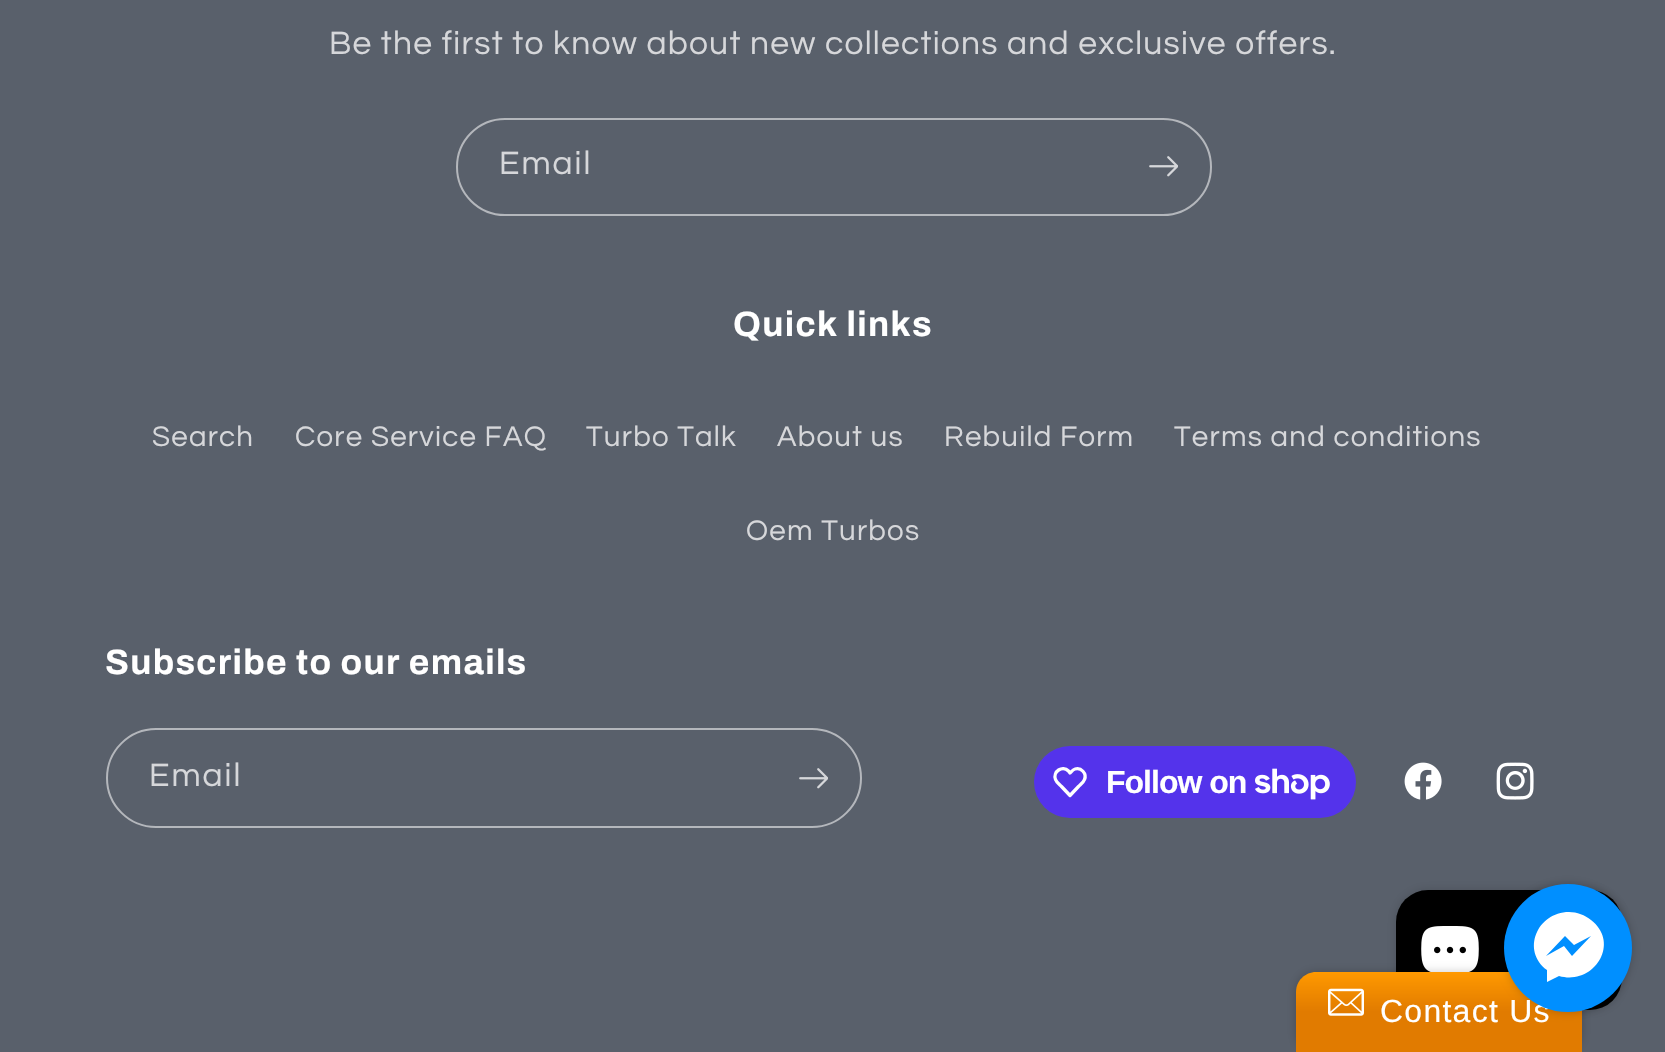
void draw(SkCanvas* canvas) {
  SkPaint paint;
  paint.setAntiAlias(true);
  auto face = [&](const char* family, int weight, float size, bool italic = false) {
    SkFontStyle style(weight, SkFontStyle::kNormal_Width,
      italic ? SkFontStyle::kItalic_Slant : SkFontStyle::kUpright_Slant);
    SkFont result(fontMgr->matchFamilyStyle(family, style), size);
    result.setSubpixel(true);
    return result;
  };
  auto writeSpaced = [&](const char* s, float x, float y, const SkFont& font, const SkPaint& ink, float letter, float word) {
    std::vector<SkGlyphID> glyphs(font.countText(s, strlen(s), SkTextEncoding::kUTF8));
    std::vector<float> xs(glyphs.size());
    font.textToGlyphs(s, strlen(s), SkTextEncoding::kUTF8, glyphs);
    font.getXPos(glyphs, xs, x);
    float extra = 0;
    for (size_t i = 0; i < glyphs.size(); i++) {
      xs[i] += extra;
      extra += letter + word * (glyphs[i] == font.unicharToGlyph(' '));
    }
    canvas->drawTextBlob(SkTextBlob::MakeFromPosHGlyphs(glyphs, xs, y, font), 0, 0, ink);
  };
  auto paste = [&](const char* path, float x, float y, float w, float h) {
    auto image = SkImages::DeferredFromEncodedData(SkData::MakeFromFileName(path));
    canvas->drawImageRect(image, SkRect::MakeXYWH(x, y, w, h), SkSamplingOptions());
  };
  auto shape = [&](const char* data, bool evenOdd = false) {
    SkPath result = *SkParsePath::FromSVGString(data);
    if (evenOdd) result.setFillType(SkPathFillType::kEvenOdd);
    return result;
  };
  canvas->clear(0xff59606b);
  paint.setStroke(true);
  paint.setStrokeWidth(2);
  paint.setColor(0xffb4b7bc);
  canvas->drawRoundRect(SkRect::MakeXYWH(457, 119, 754, 96), 48, 48, paint);
  paste("img/1.png", 1149, 156, 29, 21);
  canvas->drawRoundRect(SkRect::MakeXYWH(107, 729, 754, 98), 49, 49, paint);
  paste("img/1.png", 799, 768, 29, 21);
  paint.setStroke(false);
  paint.setColor(0xff5433eb);
  canvas->drawRoundRect(SkRect::MakeXYWH(1034, 746, 322, 72), 36, 36, paint);
  paint.setStroke(true);
  paint.setStrokeWidth(3.3f);
  paint.setStrokeJoin(SkPaint::kRound_Join);
  paint.setColor(0xffffffff);
  canvas->drawPath(shape("M1068.5 771L1070 773C1071.5 771.5 1073 769.5 1075 769C1081 767 1087 773.5 1084.5 779.5C1083.5 782.5 1080.5 784.5 1078.5 786.5L1070 795.5L1061.5 786.5C1059.5 784.5 1056.5 782.5 1055.5 779.5C1052.5 771.5 1062.5 765 1068.5 771Z"), paint);
  paste("img/2.png", 1255, 768, 75, 32);
  paste("img/3.png", 1404, 762, 38, 38);
  paste("img/4.png", 1496, 762, 38, 38);
  paint.setStroke(false);
  paint.setColor(0x26000000);
  paint.setMaskFilter(SkMaskFilter::MakeBlur(kNormal_SkBlurStyle, 5));
  canvas->drawRoundRect(SkRect::MakeXYWH(1396, 890, 226, 120), 32, 32, paint);
  paint.setMaskFilter(nullptr);
  paint.setColor(0xff000000);
  canvas->drawRoundRect(SkRect::MakeXYWH(1396, 890, 226, 120), 32, 32, paint);
  paste("img/5.png", 1421, 926, 58, 46);
  paint.setColor(0x33000000);
  paint.setMaskFilter(SkMaskFilter::MakeBlur(kNormal_SkBlurStyle, 5));
  canvas->drawRoundRect(SkRect::MakeXYWH(1296, 972, 286, 80), 20, 20, paint);
  paint.setMaskFilter(nullptr);
  {
    const SkColor colors[] = {0xffff9900, 0xffe17b00};
    const float stops[] = {0, 0.5f};
    const SkPoint ends[] = {{1439, 972}, {1439, 1052}};
    paint.setShader(SkGradientShader::MakeLinear(ends, colors, stops, 2, SkTileMode::kClamp));
    paint.setAlpha(255);
  }
  canvas->drawPath(shape("M1316 972H1562C1573 972 1582 981 1582 992V1052H1296V992C1296 981 1305 972 1316 972Z"), paint);
  paint.setShader(nullptr);
  paint.setColor(0x33000000);
  paint.setMaskFilter(SkMaskFilter::MakeBlur(kNormal_SkBlurStyle, 5));
  canvas->drawRoundRect(SkRect::MakeXYWH(1504, 884, 128, 128), 64, 64, paint);
  paint.setMaskFilter(nullptr);
  paste("img/6.png", 1328, 988, 36, 28);
  auto f0 = face("Questrial", 400, 33.6f);
  paint.setColor(0xffd6d7da);
  writeSpaced("Be the first to know about new collections and exclusive offers.", 329, 54, f0, paint, 1.25f, 0);
  writeSpaced("Email", 499, 174, f0, paint, 2, 0);
  auto f1 = face("Archivo", 700, 35.25f);
  paint.setColor(0xffffffff);
  writeSpaced("Quick links", 733, 336, f1, paint, 1.3f, 0);
  auto f2 = face("Questrial", 400, 29.4f);
  paint.setColor(0xffd6d7da);
  {
    const struct { const char* s; float x, y; } items[] = {
      {"Search", 152, 446},
      {"Core Service FAQ", 295, 446},
      {"Turbo Talk", 586, 446},
      {"About us", 777, 446},
      {"Rebuild Form", 944, 446},
      {"Terms and conditions", 1174, 446},
      {"Oem Turbos", 746, 540},
    };
    for (auto [s, x, y] : items) {
      writeSpaced(s, x, y, f2, paint, 1.25f, 0);
    }
  }
  paint.setColor(0xffffffff);
  writeSpaced("Subscribe to our emails", 105, 674, f1, paint, 1.3f, 0);
  paint.setColor(0xffd6d7da);
  writeSpaced("Email", 149, 786, f0, paint, 2, 0);
  auto f3 = face("Liberation Sans", 700, 32);
  paint.setColor(0xffffffff);
  writeSpaced("Follow on", 1106, 793, f3, paint, -1, 0);
  auto f4 = face("Liberation Sans", 400, 32);
  writeSpaced("Contact Us", 1380, 1022, f4, paint, 1.25f, 0);
  paint.setColor(0xff008fff);
  canvas->drawCircle(1568, 948, 64, paint);
  paint.setColor(0xffffffff);
  canvas->drawPath(shape("M1569 912C1537 912 1521 951 1547 970V982L1559 976C1594 986 1621 943 1591 920C1585 915 1577 912 1569 912ZM1572 956L1564 946L1546 956L1565 936L1574 945L1591 936Z"), paint);
}
